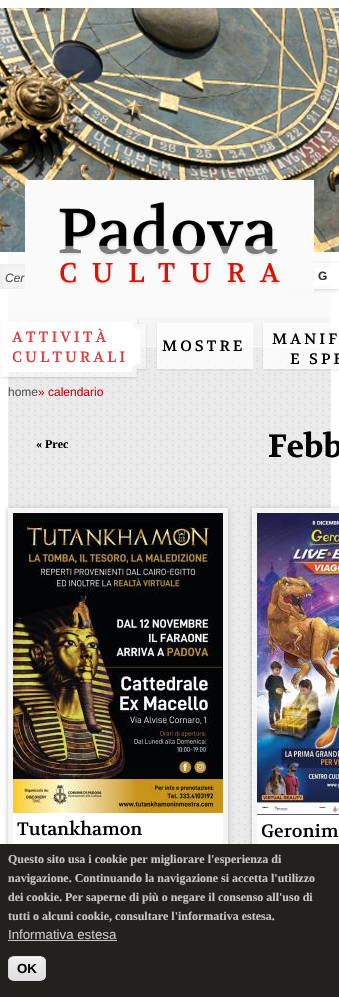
void draw(SkCanvas* canvas) {
  SkPaint paint;
  paint.setAntiAlias(true);
  auto face = [&](const char* family, int weight, float size, bool italic = false) {
    SkFontStyle style(weight, SkFontStyle::kNormal_Width,
      italic ? SkFontStyle::kItalic_Slant : SkFontStyle::kUpright_Slant);
    SkFont result(fontMgr->matchFamilyStyle(family, style), size);
    result.setSubpixel(true);
    return result;
  };
  auto writeSpaced = [&](const char* s, float x, float y, const SkFont& font, const SkPaint& ink, float letter, float word) {
    std::vector<SkGlyphID> glyphs(font.countText(s, strlen(s), SkTextEncoding::kUTF8));
    std::vector<float> xs(glyphs.size());
    font.textToGlyphs(s, strlen(s), SkTextEncoding::kUTF8, glyphs);
    font.getXPos(glyphs, xs, x);
    float extra = 0;
    for (size_t i = 0; i < glyphs.size(); i++) {
      xs[i] += extra;
      extra += letter + word * (glyphs[i] == font.unicharToGlyph(' '));
    }
    canvas->drawTextBlob(SkTextBlob::MakeFromPosHGlyphs(glyphs, xs, y, font), 0, 0, ink);
  };
  auto paste = [&](const char* path, float x, float y, float w, float h) {
    auto image = SkImages::DeferredFromEncodedData(SkData::MakeFromFileName(path));
    canvas->drawImageRect(image, SkRect::MakeXYWH(x, y, w, h), SkSamplingOptions());
  };
  auto shape = [&](const char* data, bool evenOdd = false) {
    SkPath result = *SkParsePath::FromSVGString(data);
    if (evenOdd) result.setFillType(SkPathFillType::kEvenOdd);
    return result;
  };
  canvas->clear(0xffffffff);
  paint.setColor(0xfffafafa);
  canvas->drawRect(SkRect::MakeXYWH(8, 252, 323, 65), paint);
  paste("img/1.png", 8, 317, 323, 30);
  paste("img/2.png", 0, 8, 339, 244);
  paste("img/3.png", 0, 264, 25, 25);
  canvas->save();
  canvas->clipPath(shape("M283 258H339V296H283ZM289 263H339V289H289Z", true), true);
  paint.setColor(0x26000000);
  paint.setMaskFilter(SkMaskFilter::MakeBlur(kNormal_SkBlurStyle, 1.5f));
  canvas->drawRect(SkRect::MakeXYWH(289, 264, 50, 26), paint);
  paint.setMaskFilter(nullptr);
  canvas->restore();
  paste("img/4.png", 25, 180, 289, 112);
  paint.setColor(0xffffffff);
  canvas->drawRect(SkRect::MakeXYWH(314, 268, 17, 17), paint);
  paste("img/8.png", 8, 347, 323, 497);
  paste("img/5.png", 0, 317, 147, 62);
  paste("img/6.png", 156, 323, 97, 48);
  paste("img/7.png", 262, 323, 77, 48);
  paint.setColor(0x40000000);
  paint.setMaskFilter(SkMaskFilter::MakeBlur(kNormal_SkBlurStyle, 2.5f));
  canvas->drawRect(SkRect::MakeXYWH(8, 509, 220, 412), paint);
  paint.setMaskFilter(nullptr);
  paint.setColor(0xfff5f5f5);
  canvas->drawRect(SkRect::MakeXYWH(8, 508, 220, 336), paint);
  paste("img/9.png", 13, 513, 210, 300);
  paint.setColor(0xffffffff);
  canvas->drawRect(SkRect::MakeXYWH(13, 813, 210, 31), paint);
  paint.setColor(0x40000000);
  paint.setMaskFilter(SkMaskFilter::MakeBlur(kNormal_SkBlurStyle, 2.5f));
  canvas->drawRect(SkRect::MakeXYWH(252, 509, 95, 433), paint);
  paint.setMaskFilter(nullptr);
  paint.setColor(0xfff5f5f5);
  canvas->drawRect(SkRect::MakeXYWH(252, 508, 87, 336), paint);
  paste("img/10.png", 257, 513, 82, 302);
  {
    const struct { float x, y, w, h; SkColor color; } items[] = {
      {257, 815, 82, 29, 0xffffffff},
      {0, 844, 339, 153, 0xff23211e},
      {8, 940, 109, 1, 0xffc6c6c6},
    };
    for (auto [x, y, w, h, color] : items) {
      paint.setColor(color);
      canvas->drawRect(SkRect::MakeXYWH(x, y, w, h), paint);
    }
  }
  canvas->save();
  canvas->clipPath(shape("M14 956H40C43.5 956 46 958.5 46 962V975C46 978.5 43.5 981 40 981H14C10.5 981 8 978.5 8 975V962C8 958.5 10.5 956 14 956Z"), true);
  {
    const SkColor colors[] = {0xffededed, 0xffdfdfdf};
    const float stops[] = {0.05f, 1};
    const SkPoint ends[] = {{27, 957}, {27, 980}};
    paint.setShader(SkGradientShader::MakeLinear(ends, colors, stops, 2, SkTileMode::kClamp));
    paint.setAlpha(255);
  }
  canvas->drawRect(SkRect::MakeXYWH(8, 957, 38, 23), paint);
  canvas->restore();
  paint.setShader(nullptr);
  paint.setColor(0xffffffff);
  canvas->drawPath(shape("M14 958H36C43.5 958 45 959 45 964C45 957 42 957 35.5 957H18.5C11.5 957 9 957 9 964.5C9 961 10 958 14 958Z"), paint);
  paint.setStroke(true);
  paint.setStrokeWidth(1);
  paint.setColor(0xffdcdcdc);
  canvas->drawRoundRect(SkRect::MakeXYWH(8.5f, 956.5f, 37, 24), 5.5f, 5.5f, paint);
  auto f0 = face("Liberation Sans", 400, 12, true);
  paint.setStroke(false);
  paint.setColor(0xff555555);
  canvas->drawString("Cer", 5, 282, f0, paint);
  auto f1 = face("Liberation Sans", 700, 12);
  paint.setColor(0xff333333);
  canvas->drawString("G", 318, 280, f1, paint);
  auto f2 = face("Volkhov", 400, 15);
  paint.setColor(0xffe23d3d);
  writeSpaced("ATTIVITÀ", 12, 342, f2, paint, 3, 0);
  writeSpaced("CULTURALI", 12, 362, f2, paint, 3, 0);
  paint.setColor(0xff000000);
  {
    const struct { const char* s; float x, y; } items[] = {
      {"MOSTRE", 162, 351},
      {"MANIF", 272, 344},
      {"E SPE", 290, 364},
    };
    for (auto [s, x, y] : items) {
      writeSpaced(s, x, y, f2, paint, 3, 0);
    }
  }
  auto f3 = face("Liberation Sans", 400, 12);
  paint.setColor(0xff555555);
  canvas->drawString("home", 8, 396, f3, paint);
  paint.setColor(0xffd9000e);
  canvas->drawString("» calendario", 38, 396, f3, paint);
  auto f4 = face("Liberation Serif", 700, 12);
  paint.setColor(0xff000000);
  canvas->drawString("« Prec", 36, 448, f4, paint);
  auto f5 = face("Volkhov", 700, 32);
  canvas->drawString("Febb", 268, 457, f5, paint);
  auto f6 = face("Volkhov", 400, 18);
  canvas->drawString("Tutankhamon", 17, 835, f6, paint);
  canvas->drawString("Geronim", 261, 837, f6, paint);
  paint.setColor(0xffc6c6c6);
  {
    const struct { const char* s; float x, y; } items[] = {
      {"Questo sito usa i cookie per migliorare l'esperienza di", 8, 863},
      {"navigazione. Continuando la navigazione si accetta l'utilizzo", 8, 882},
      {"dei cookie. Per saperne di più o negare il consenso all'uso di", 8, 901},
      {"tutti o alcuni cookie, consultare l'informativa estesa.", 8, 920},
    };
    for (auto [s, x, y] : items) {
      canvas->drawString(s, x, y, f4, paint);
    }
  }
  auto f7 = face("Liberation Sans", 400, 13.25f);
  canvas->drawString("Informativa estesa", 8, 939, f7, paint);
  auto f8 = face("Liberation Sans", 700, 13.25f);
  paint.setColor(0xff000000);
  canvas->drawString("OK", 17, 973, f8, paint);
}
